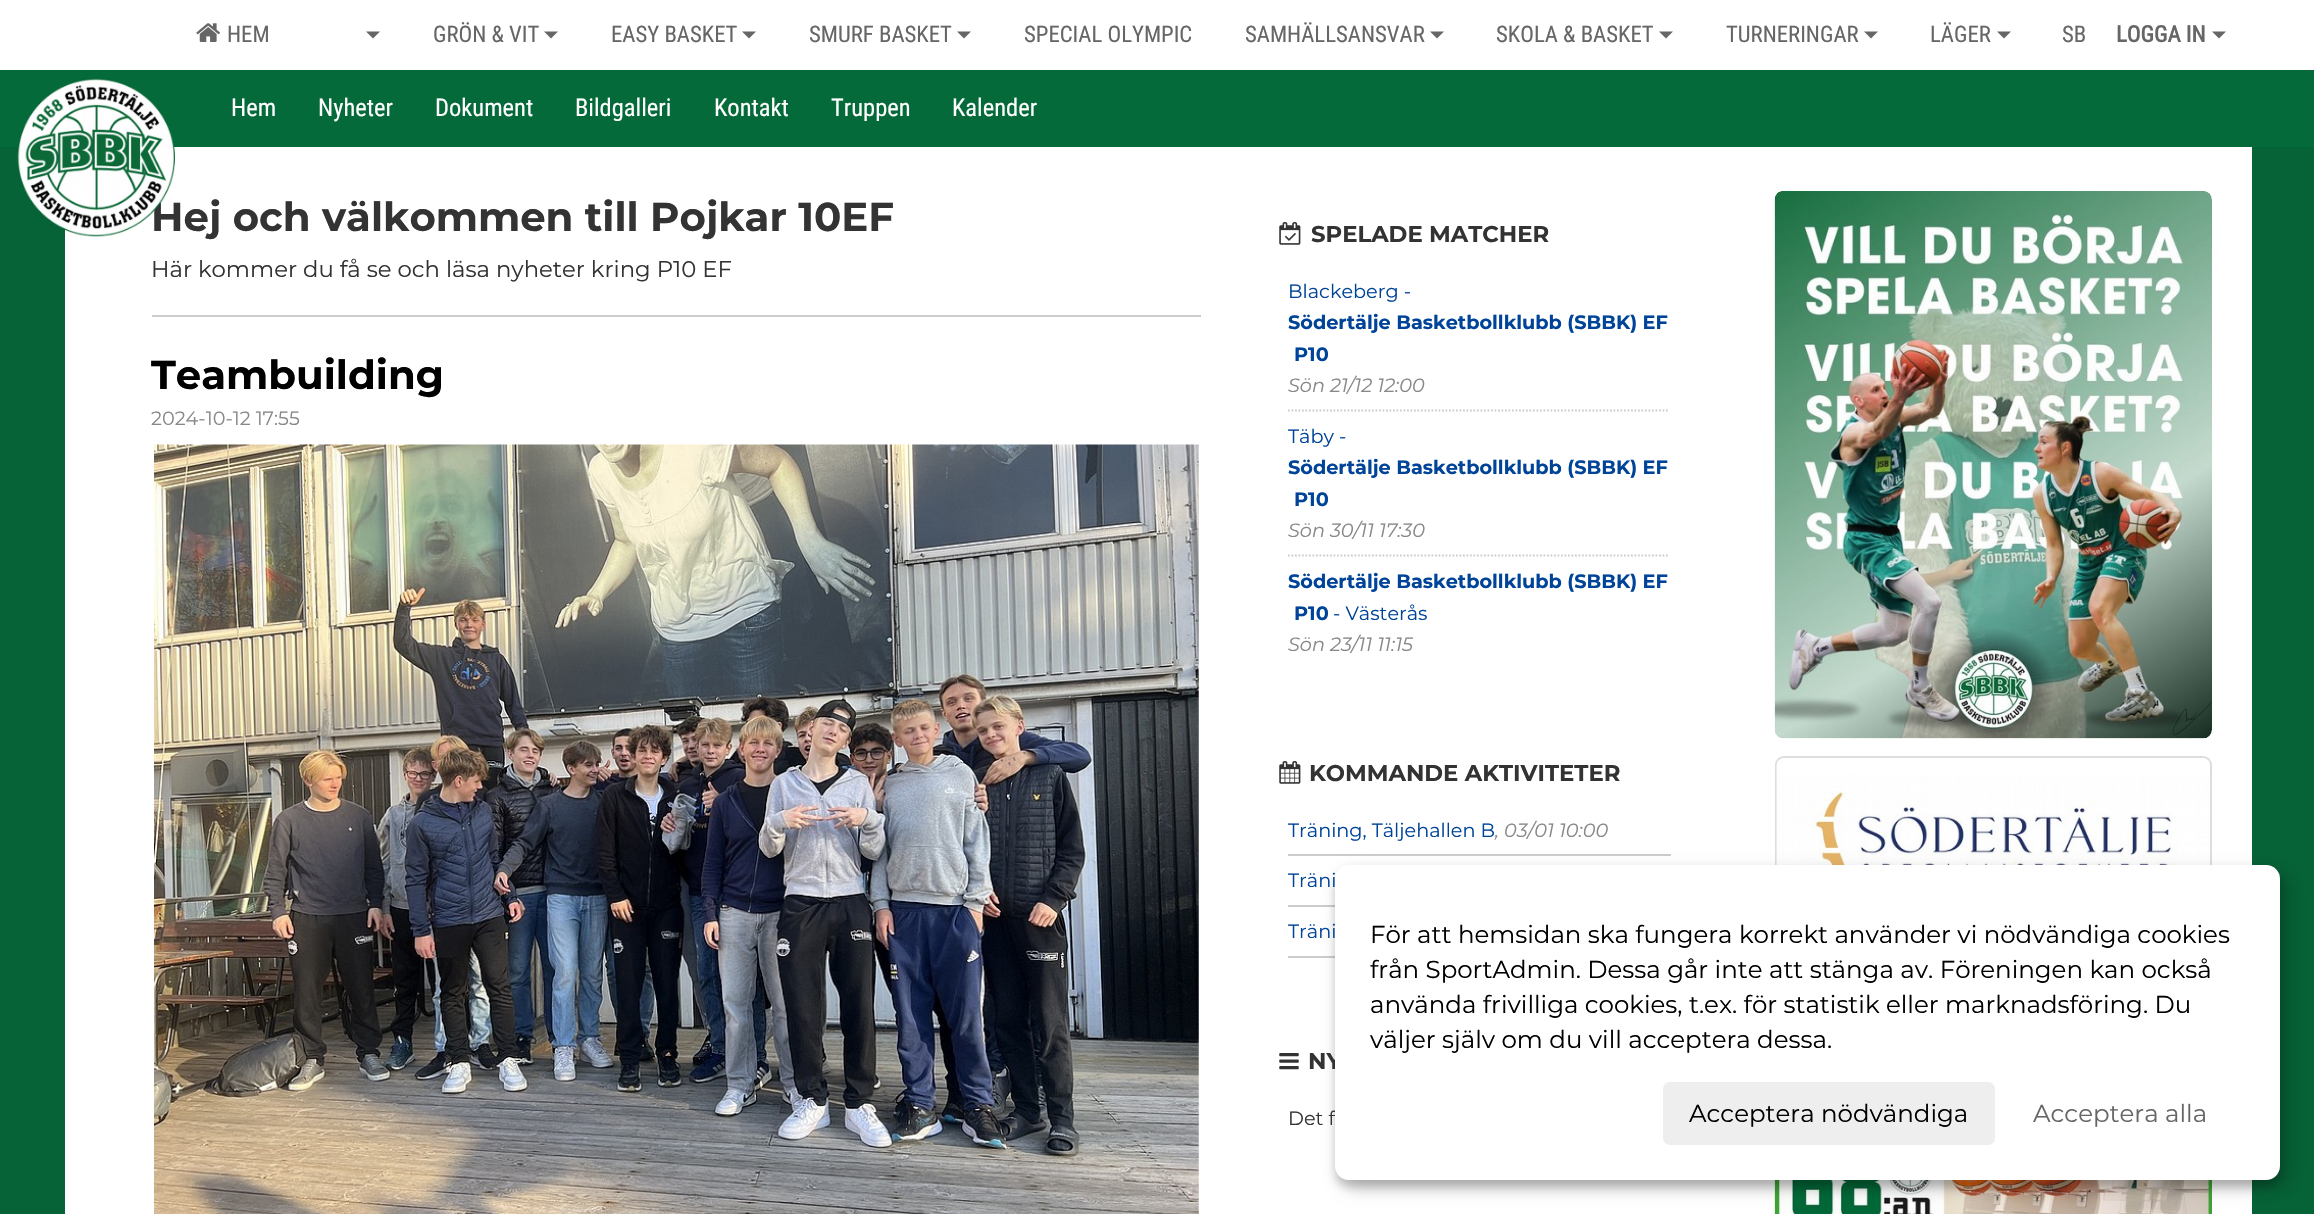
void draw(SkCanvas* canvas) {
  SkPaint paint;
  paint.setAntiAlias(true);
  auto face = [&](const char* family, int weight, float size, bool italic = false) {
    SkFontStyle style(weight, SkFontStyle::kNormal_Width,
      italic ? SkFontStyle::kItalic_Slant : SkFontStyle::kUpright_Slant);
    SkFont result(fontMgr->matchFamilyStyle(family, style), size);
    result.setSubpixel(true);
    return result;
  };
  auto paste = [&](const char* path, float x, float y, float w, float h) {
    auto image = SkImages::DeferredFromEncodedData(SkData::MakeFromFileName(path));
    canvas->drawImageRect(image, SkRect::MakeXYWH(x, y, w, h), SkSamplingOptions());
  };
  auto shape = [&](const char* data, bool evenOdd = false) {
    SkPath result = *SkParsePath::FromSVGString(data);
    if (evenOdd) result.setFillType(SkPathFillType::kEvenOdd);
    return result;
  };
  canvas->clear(0xff066237);
  paint.setColor(0xffffffff);
  canvas->drawRect(SkRect::MakeXYWH(0, 0, 2314, 70), paint);
  paste("img/1.png", 196, 23, 24, 19);
  paint.setColor(0xff666666);
  canvas->drawPath(shape("M366 31.5H380L373 38.5Z"), paint);
  canvas->drawPath(shape("M544 31.5H558L551 38.5Z"), paint);
  canvas->drawPath(shape("M742 31.5H756L749 38.5Z"), paint);
  canvas->drawPath(shape("M957 31.5H971L964 38.5Z"), paint);
  canvas->drawPath(shape("M1430 31.5H1444L1437 38.5Z"), paint);
  canvas->drawPath(shape("M1659 31.5H1673L1666 38.5Z"), paint);
  canvas->drawPath(shape("M1864 31.5H1878L1871 38.5Z"), paint);
  canvas->drawPath(shape("M1997 31.5H2011L2004 38.5Z"), paint);
  canvas->drawPath(shape("M2212 31.5H2226L2219 38.5Z"), paint);
  {
    const struct { float x, y, w, h; SkColor color; } items[] = {
      {65, 147, 2187, 1067, 0xffffffff},
      {0, 70, 2314, 77, 0xff046a3a},
      {152, 315, 1049, 2, 0xffcccccc},
    };
    for (auto [x, y, w, h, color] : items) {
      paint.setColor(color);
      canvas->drawRect(SkRect::MakeXYWH(x, y, w, h), paint);
    }
  }
  paste("img/3.png", 154, 444, 1045, 770);
  paste("img/4.png", 1279, 222, 22, 23);
  paint.setStroke(true);
  paint.setStrokeWidth(1.8f);
  paint.setPathEffect(SkDashPathEffect::Make({{1.75f, 1.75f}}, 0));
  canvas->drawPath(shape("M1288 410.5H1669.5"), paint);
  paint.setPathEffect(nullptr);
  paint.setPathEffect(SkDashPathEffect::Make({{1.75f, 1.75f}}, 0));
  canvas->drawPath(shape("M1288 555.5H1669.5"), paint);
  paint.setPathEffect(nullptr);
  paste("img/5.png", 1279, 761, 22, 23);
  paint.setStroke(false);
  {
    const struct { float x, y, w, h; SkColor color; } items[] = {
      {1288, 854, 383, 2, 0xffcccccc},
      {1288, 905, 47, 2, 0xffcccccc},
      {1288, 956, 47, 2, 0xffcccccc},
    };
    for (auto [x, y, w, h, color] : items) {
      paint.setColor(color);
      canvas->drawRect(SkRect::MakeXYWH(x, y, w, h), paint);
    }
  }
  paste("img/6.png", 1279, 1053, 20, 17);
  paste("img/7.png", 1774, 191, 438, 548);
  paint.setStroke(true);
  paint.setStrokeWidth(2);
  paint.setColor(0xffdddddd);
  canvas->drawRoundRect(SkRect::MakeXYWH(1776, 757, 435, 219), 8, 8, paint);
  paste("img/8.png", 1776, 758, 434, 107);
  paste("img/9.png", 1774, 1180, 438, 34);
  paint.setStroke(false);
  paint.setColor(0x30000000);
  paint.setMaskFilter(SkMaskFilter::MakeBlur(kNormal_SkBlurStyle, 9));
  canvas->drawRoundRect(SkRect::MakeXYWH(1344, 873, 945, 315), 14, 14, paint);
  paint.setMaskFilter(nullptr);
  paint.setColor(0x33000000);
  paint.setMaskFilter(SkMaskFilter::MakeBlur(kNormal_SkBlurStyle, 5));
  canvas->drawRoundRect(SkRect::MakeXYWH(1335, 872, 945, 315), 14, 14, paint);
  paint.setMaskFilter(nullptr);
  auto f0 = face("Roboto Condensed", 400, 22.75f);
  paint.setColor(0xff666666);
  {
    const struct { const char* s; float x, y; } items[] = {
      {"HEM", 227, 42},
      {"GRÖN & VIT", 433, 42},
      {"EASY BASKET", 611, 42},
      {"SMURF BASKET", 809, 42},
      {"SPECIAL OLYMPIC", 1024, 42},
      {"SAMHÄLLSANSVAR", 1245, 42},
      {"SKOLA & BASKET", 1496, 42},
      {"TURNERINGAR", 1726, 42},
      {"LÄGER", 1930, 42},
      {"SB", 2062, 42},
    };
    for (auto [s, x, y] : items) {
      canvas->drawString(s, x, y, f0, paint);
    }
  }
  auto f1 = face("Roboto Condensed", 700, 22.75f);
  canvas->drawString("LOGGA IN", 2116, 42, f1, paint);
  auto f2 = face("Roboto Condensed", 400, 24.5f);
  paint.setColor(0xffffffff);
  {
    const struct { const char* s; float x, y; } items[] = {
      {"Hem", 231, 116},
      {"Nyheter", 318, 116},
      {"Dokument", 435, 116},
      {"Bildgalleri", 575, 116},
      {"Kontakt", 714, 116},
      {"Truppen", 831, 116},
      {"Kalender", 952, 116},
    };
    for (auto [s, x, y] : items) {
      canvas->drawString(s, x, y, f2, paint);
    }
  }
  auto f3 = face("Montserrat", 700, 40.25f);
  paint.setColor(0xff333333);
  canvas->drawString("Hej och välkommen till Pojkar 10EF", 151, 231, f3, paint);
  paste("img/2.png", 17, 78, 158, 159);
  auto f4 = face("Montserrat", 400, 22.75f);
  canvas->drawString("Här kommer du få se och läsa nyheter kring P10 EF", 151, 277, f4, paint);
  paint.setColor(0xff000000);
  canvas->drawString("Teambuilding", 151, 389, f3, paint);
  auto f5 = face("Montserrat", 400, 19.25f);
  paint.setColor(0xff888888);
  canvas->drawString("2024-10-12 17:55", 151, 425, f5, paint);
  auto f6 = face("Montserrat", 700, 22.75f);
  paint.setColor(0xff333333);
  canvas->drawString("SPELADE MATCHER", 1311, 242, f6, paint);
  paint.setColor(0xff004499);
  canvas->drawString("Blackeberg -", 1288, 298, f5, paint);
  auto f7 = face("Montserrat", 700, 19.25f);
  canvas->drawString("Södertälje Basketbollklubb (SBBK) EF", 1288, 329, f7, paint);
  canvas->drawString("P10", 1294, 361, f7, paint);
  auto f8 = face("Montserrat", 100, 19.25f, true);
  paint.setColor(0xff888888);
  canvas->drawString("Sön 21/12 12:00", 1288, 392, f8, paint);
  paint.setColor(0xff004499);
  canvas->drawString("Täby -", 1288, 443, f5, paint);
  canvas->drawString("Södertälje Basketbollklubb (SBBK) EF", 1288, 474, f7, paint);
  canvas->drawString("P10", 1294, 506, f7, paint);
  paint.setColor(0xff888888);
  canvas->drawString("Sön 30/11 17:30", 1288, 537, f8, paint);
  paint.setColor(0xff004499);
  canvas->drawString("Södertälje Basketbollklubb (SBBK) EF", 1288, 588, f7, paint);
  canvas->drawString("P10", 1294, 620, f7, paint);
  canvas->drawString("- Västerås", 1333, 620, f5, paint);
  paint.setColor(0xff888888);
  canvas->drawString("Sön 23/11 11:15", 1288, 651, f8, paint);
  paint.setColor(0xff333333);
  canvas->drawString("KOMMANDE AKTIVITETER", 1309, 781, f6, paint);
  paint.setColor(0xff004499);
  canvas->drawString("Träning, Täljehallen B", 1288, 837, f5, paint);
  paint.setColor(0xff888888);
  canvas->drawString(", 03/01 10:00", 1495, 837, f8, paint);
  paint.setColor(0xff004499);
  canvas->drawString("Träni", 1288, 887, f5, paint);
  canvas->drawString("Träni", 1288, 938, f5, paint);
  paint.setColor(0xff333333);
  canvas->drawString("NY", 1308, 1069, f6, paint);
  canvas->drawString("Det f", 1288, 1125, f5, paint);
  paint.setColor(0xffffffff);
  canvas->drawRoundRect(SkRect::MakeXYWH(1335, 865, 945, 315), 14, 14, paint);
  auto f9 = face("Montserrat", 400, 24.5f);
  paint.setColor(0xff000000);
  {
    const struct { const char* s; float x, y; } items[] = {
      {"För att hemsidan ska fungera korrekt använder vi nödvändiga cookies", 1370, 943},
      {"från SportAdmin. Dessa går inte att stänga av. Föreningen kan också", 1370, 978},
      {"använda frivilliga cookies, t.ex. för statistik eller marknadsföring. Du", 1370, 1013},
      {"väljer själv om du vill acceptera dessa.", 1370, 1048},
    };
    for (auto [s, x, y] : items) {
      canvas->drawString(s, x, y, f9, paint);
    }
  }
  paint.setColor(0xffeeeeee);
  canvas->drawRoundRect(SkRect::MakeXYWH(1663, 1082, 332, 63), 7, 7, paint);
  paint.setColor(0xff000000);
  canvas->drawString("Acceptera nödvändiga", 1689, 1122, f9, paint);
  paint.setColor(0xff666666);
  canvas->drawString("Acceptera alla", 2033, 1122, f9, paint);
}
